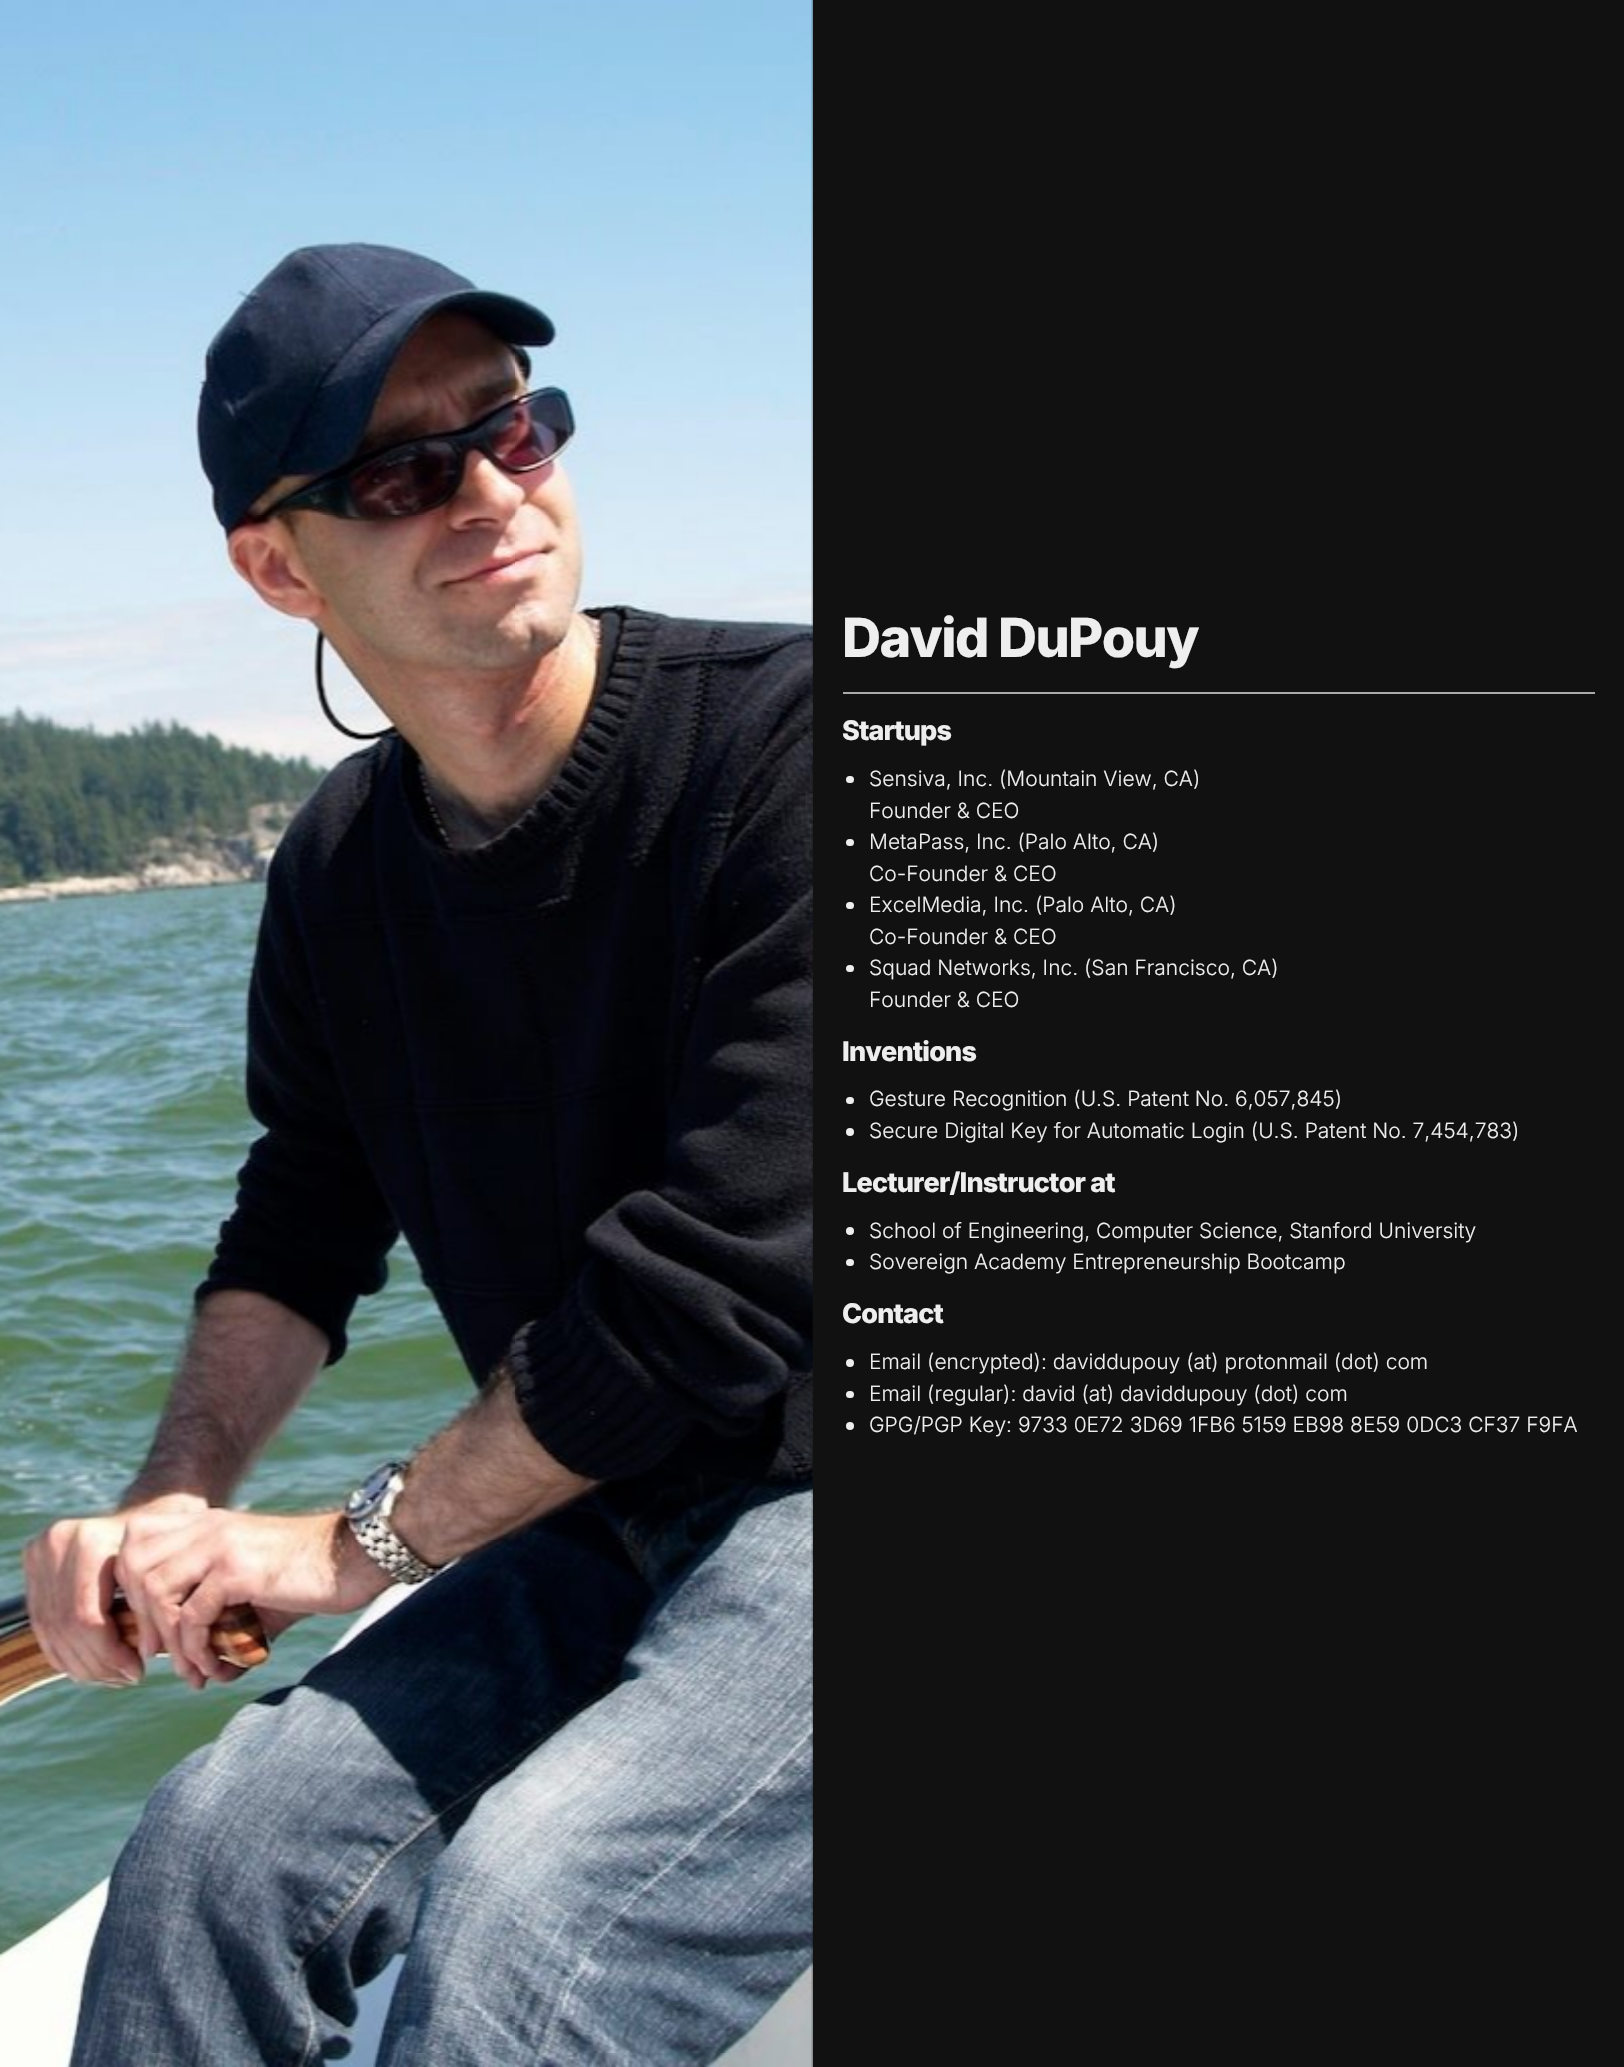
void draw(SkCanvas* canvas) {
  SkPaint paint;
  paint.setAntiAlias(true);
  auto face = [&](const char* family, int weight, float size, bool italic = false) {
    SkFontStyle style(weight, SkFontStyle::kNormal_Width,
      italic ? SkFontStyle::kItalic_Slant : SkFontStyle::kUpright_Slant);
    SkFont result(fontMgr->matchFamilyStyle(family, style), size);
    result.setSubpixel(true);
    return result;
  };
  auto writeSpaced = [&](const char* s, float x, float y, const SkFont& font, const SkPaint& ink, float letter, float word) {
    std::vector<SkGlyphID> glyphs(font.countText(s, strlen(s), SkTextEncoding::kUTF8));
    std::vector<float> xs(glyphs.size());
    font.textToGlyphs(s, strlen(s), SkTextEncoding::kUTF8, glyphs);
    font.getXPos(glyphs, xs, x);
    float extra = 0;
    for (size_t i = 0; i < glyphs.size(); i++) {
      xs[i] += extra;
      extra += letter + word * (glyphs[i] == font.unicharToGlyph(' '));
    }
    canvas->drawTextBlob(SkTextBlob::MakeFromPosHGlyphs(glyphs, xs, y, font), 0, 0, ink);
  };
  auto paste = [&](const char* path, float x, float y, float w, float h) {
    auto image = SkImages::DeferredFromEncodedData(SkData::MakeFromFileName(path));
    canvas->drawImageRect(image, SkRect::MakeXYWH(x, y, w, h), SkSamplingOptions());
  };
  canvas->clear(0xff111111);
  paste("img/1.png", 0, 0, 813, 2067);
  paint.setColor(0xffaaaaaa);
  canvas->drawRect(SkRect::MakeXYWH(843, 692, 752, 2), paint);
  paint.setColor(0xffeeeeee);
  canvas->drawRoundRect(SkRect::MakeXYWH(846, 776, 8, 7), 3.5f, 3.5f, paint);
  canvas->drawRoundRect(SkRect::MakeXYWH(846, 839, 8, 7), 3.5f, 3.5f, paint);
  canvas->drawRoundRect(SkRect::MakeXYWH(846, 902, 8, 7), 3.5f, 3.5f, paint);
  canvas->drawRoundRect(SkRect::MakeXYWH(846, 965, 8, 7), 3.5f, 3.5f, paint);
  canvas->drawRoundRect(SkRect::MakeXYWH(846, 1097, 8, 7), 3.5f, 3.5f, paint);
  canvas->drawCircle(850, 1132, 4, paint);
  canvas->drawCircle(850, 1231, 4, paint);
  canvas->drawRoundRect(SkRect::MakeXYWH(846, 1259, 8, 7), 3.5f, 3.5f, paint);
  canvas->drawCircle(850, 1363, 4, paint);
  canvas->drawRoundRect(SkRect::MakeXYWH(846, 1391, 8, 7), 3.5f, 3.5f, paint);
  canvas->drawCircle(850, 1426, 4, paint);
  auto f0 = face("Inter", 800, 54);
  writeSpaced("David DuPouy", 842, 657, f0, paint, -1.6f, 0);
  auto f1 = face("Inter", 800, 27);
  writeSpaced("Startups", 842, 740, f1, paint, -0.8f, 0);
  auto f2 = face("Inter", 300, 21);
  {
    const struct { const char* s; float x, y; } items[] = {
      {"Sensiva, Inc. (Mountain View, CA)", 869, 786},
      {"Founder & CEO", 869, 818},
      {"MetaPass, Inc. (Palo Alto, CA)", 869, 849},
      {"Co-Founder & CEO", 869, 881},
      {"ExcelMedia, Inc. (Palo Alto, CA)", 869, 912},
      {"Co-Founder & CEO", 869, 944},
      {"Squad Networks, Inc. (San Francisco, CA)", 869, 975},
      {"Founder & CEO", 869, 1007},
    };
    for (auto [s, x, y] : items) {
      canvas->drawString(s, x, y, f2, paint);
    }
  }
  writeSpaced("Inventions", 842, 1061, f1, paint, -0.8f, 0);
  canvas->drawString("Gesture Recognition (U.S. Patent No. 6,057,845)", 869, 1106, f2, paint);
  canvas->drawString("Secure Digital Key for Automatic Login (U.S. Patent No. 7,454,783)", 869, 1138, f2, paint);
  writeSpaced("Lecturer/Instructor at", 842, 1192, f1, paint, -0.8f, 0);
  canvas->drawString("School of Engineering, Computer Science, Stanford University", 869, 1238, f2, paint);
  canvas->drawString("Sovereign Academy Entrepreneurship Bootcamp", 869, 1269, f2, paint);
  writeSpaced("Contact", 842, 1323, f1, paint, -0.8f, 0);
  {
    const struct { const char* s; float x, y; } items[] = {
      {"Email (encrypted): daviddupouy (at) protonmail (dot) com", 869, 1369},
      {"Email (regular): david (at) daviddupouy (dot) com", 869, 1401},
      {"GPG/PGP Key: 9733 0E72 3D69 1FB6 5159 EB98 8E59 0DC3 CF37 F9FA", 869, 1432},
    };
    for (auto [s, x, y] : items) {
      canvas->drawString(s, x, y, f2, paint);
    }
  }
}
